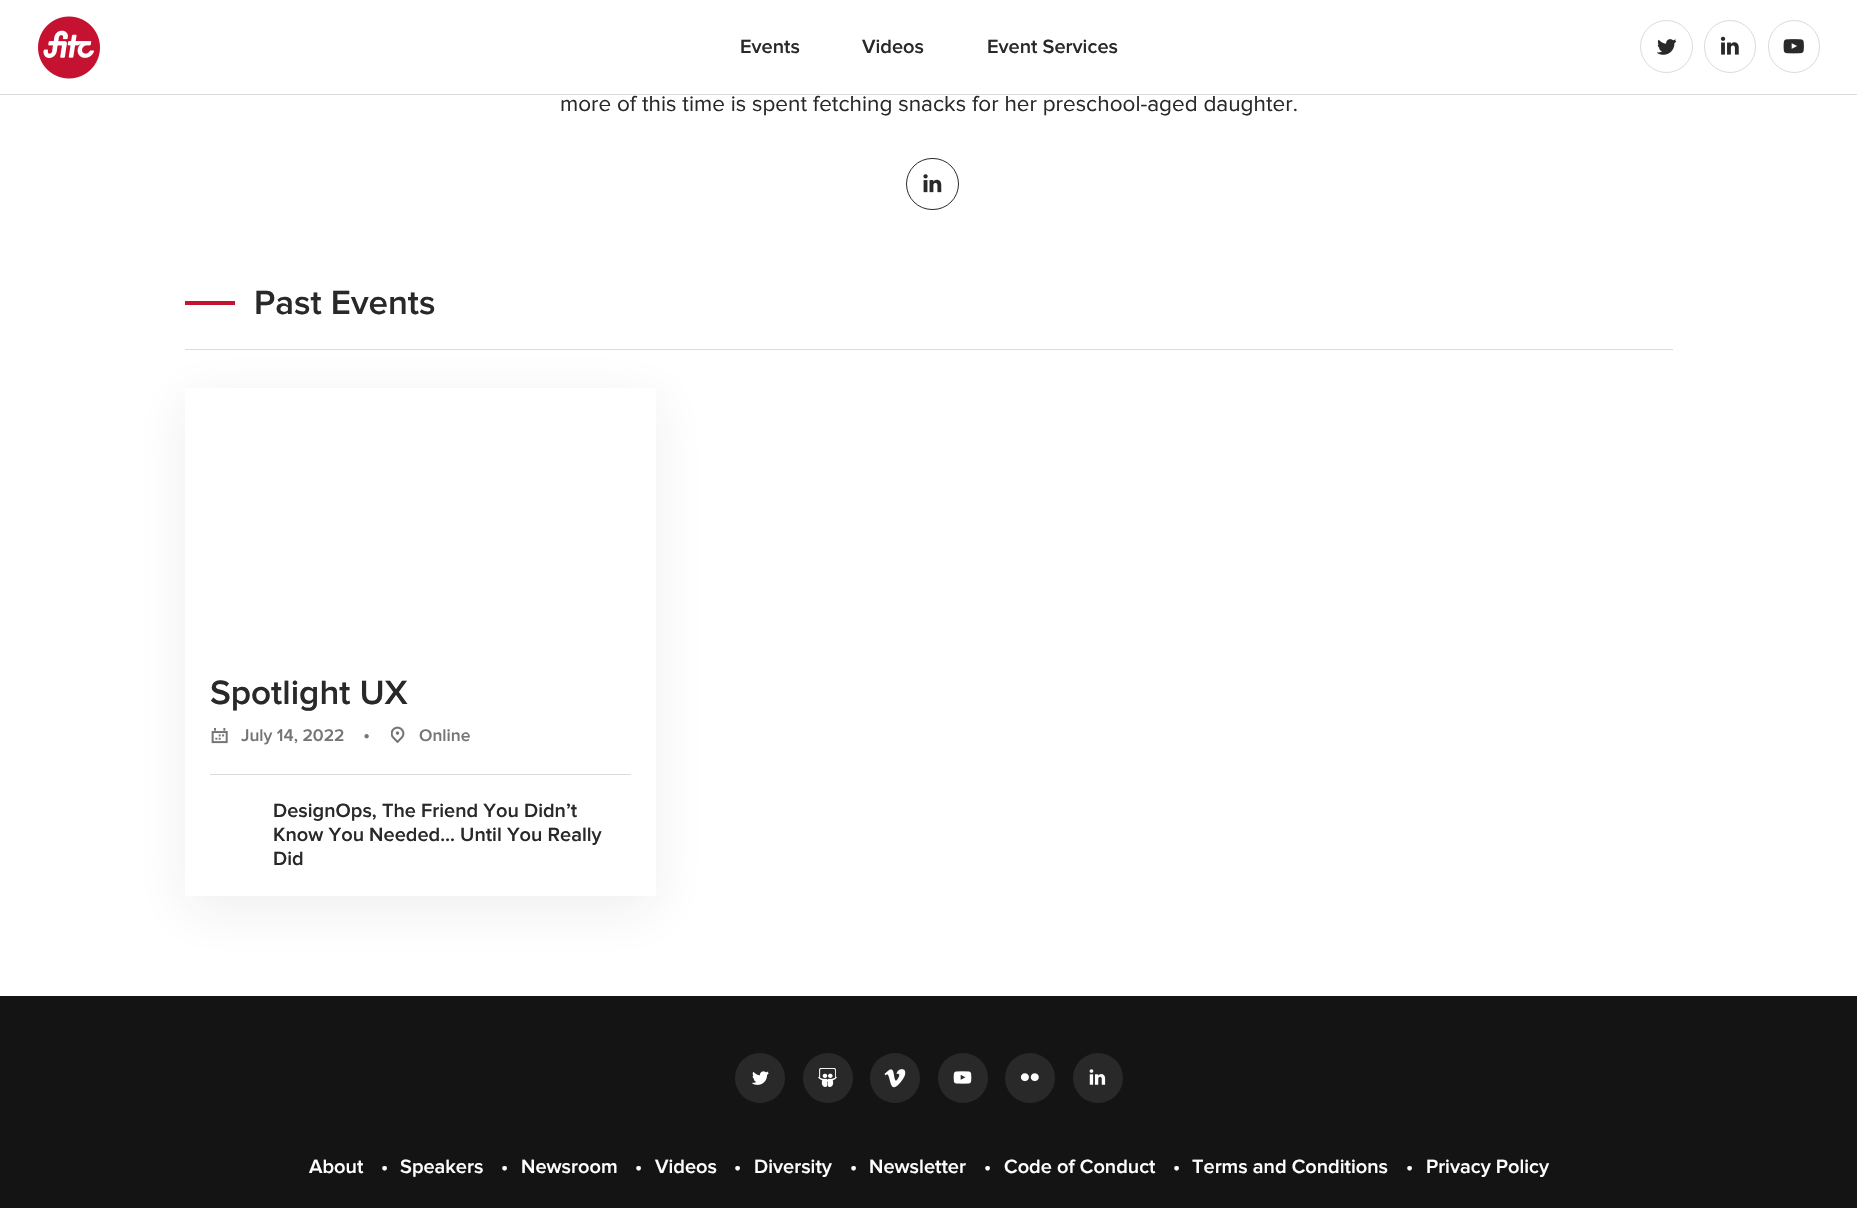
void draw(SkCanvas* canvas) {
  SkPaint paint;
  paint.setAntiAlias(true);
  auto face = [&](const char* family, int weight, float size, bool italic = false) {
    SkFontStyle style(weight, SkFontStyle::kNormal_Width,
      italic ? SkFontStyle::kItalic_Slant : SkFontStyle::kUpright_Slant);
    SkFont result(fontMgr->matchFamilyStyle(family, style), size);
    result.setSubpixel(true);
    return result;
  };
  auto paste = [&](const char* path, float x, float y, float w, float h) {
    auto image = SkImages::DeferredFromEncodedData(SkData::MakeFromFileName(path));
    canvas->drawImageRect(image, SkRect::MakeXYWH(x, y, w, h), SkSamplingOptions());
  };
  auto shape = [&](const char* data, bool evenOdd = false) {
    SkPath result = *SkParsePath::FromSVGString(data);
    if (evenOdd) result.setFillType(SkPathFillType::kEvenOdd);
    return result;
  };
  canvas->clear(0xffffffff);
  paint.setColor(0xffdbdbdb);
  canvas->drawRect(SkRect::MakeXYWH(0, 94, 1857, 1), paint);
  paste("img/1.png", 38, 16, 62, 63);
  paint.setStroke(true);
  paint.setStrokeWidth(1);
  canvas->drawCircle(1666.5f, 46.5f, 26, paint);
  paste("img/2.png", 1657, 39, 20, 16);
  canvas->drawRoundRect(SkRect::MakeXYWH(1704.5f, 20.5f, 51, 52), 25.5f, 25.5f, paint);
  paste("img/3.png", 1720, 36, 19, 19);
  canvas->drawRoundRect(SkRect::MakeXYWH(1768.5f, 20.5f, 51, 52), 25.5f, 25.5f, paint);
  paste("img/4.png", 1783, 39, 21, 15);
  paint.setColor(0xff292929);
  canvas->drawRoundRect(SkRect::MakeXYWH(906.5f, 158.5f, 52, 51), 25.5f, 25.5f, paint);
  paste("img/5.png", 923, 174, 19, 19);
  paint.setStroke(false);
  paint.setColor(0xffc41230);
  canvas->drawRect(SkRect::MakeXYWH(185, 301, 50, 4), paint);
  paint.setColor(0xffdbdbdb);
  canvas->drawRect(SkRect::MakeXYWH(185, 349, 1488, 1), paint);
  canvas->save();
  canvas->clipPath(shape("M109 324H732V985H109ZM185 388H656V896H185Z", true), true);
  paint.setColor(0x14292929);
  paint.setMaskFilter(SkMaskFilter::MakeBlur(kNormal_SkBlurStyle, 25));
  canvas->drawRect(SkRect::MakeXYWH(185, 400, 471, 509), paint);
  paint.setMaskFilter(nullptr);
  canvas->restore();
  paste("img/6.png", 211, 728, 17, 16);
  paste("img/7.png", 391, 726, 14, 17);
  paint.setColor(0xffdbdbdb);
  canvas->drawRect(SkRect::MakeXYWH(210, 774, 421, 1), paint);
  paint.setColor(0xff141414);
  canvas->drawRect(SkRect::MakeXYWH(0, 996, 1857, 212), paint);
  paint.setColor(0xff292929);
  canvas->drawCircle(760, 1078, 25, paint);
  paste("img/8.png", 752, 1071, 17, 14);
  canvas->drawCircle(828, 1078, 25, paint);
  paste("img/9.png", 818, 1068, 19, 19);
  canvas->drawCircle(895, 1078, 25, paint);
  paste("img/10.png", 884, 1069, 22, 19);
  canvas->drawCircle(963, 1078, 25, paint);
  paste("img/11.png", 953, 1071, 19, 13);
  canvas->drawCircle(1030, 1078, 25, paint);
  paste("img/12.png", 1020, 1073, 19, 9);
  canvas->drawCircle(1098, 1078, 25, paint);
  paste("img/13.png", 1089, 1069, 17, 16);
  auto f0 = face("Proxima Nova", 600, 20);
  {
    const struct { const char* s; float x, y; } items[] = {
      {"Events", 740, 53},
      {"Videos", 862, 53},
      {"Event Services", 987, 53},
    };
    for (auto [s, x, y] : items) {
      canvas->drawString(s, x, y, f0, paint);
    }
  }
  auto f1 = face("Proxima Nova", 400, 22.5f);
  canvas->drawString("more of this time is spent fetching snacks for her preschool-aged daughter.", 560, 111, f1, paint);
  auto f2 = face("Proxima Nova", 600, 35);
  canvas->drawString("Past Events", 254, 314, f2, paint);
  canvas->drawString("Spotlight UX", 210, 704, f2, paint);
  auto f3 = face("Proxima Nova", 600, 17.5f);
  paint.setColor(0xff757575);
  canvas->drawString("July 14, 2022", 241, 741, f3, paint);
  auto f4 = face("Proxima Nova", 400, 20);
  canvas->drawString("•", 363, 741, f4, paint);
  canvas->drawString("Online", 419, 741, f3, paint);
  paint.setColor(0xff292929);
  {
    const struct { const char* s; float x, y; } items[] = {
      {"DesignOps, The Friend You Didn’t", 273, 817},
      {"Know You Needed… Until You Really", 273, 841},
      {"Did", 273, 865},
    };
    for (auto [s, x, y] : items) {
      canvas->drawString(s, x, y, f0, paint);
    }
  }
  paint.setColor(0xffffffff);
  {
    const struct { const char* s; float x, y; } items[] = {
      {"About", 309, 1173},
      {"•", 381, 1173},
      {"Speakers", 400, 1173},
      {"•", 501, 1173},
      {"Newsroom", 521, 1173},
      {"•", 635, 1173},
      {"Videos", 655, 1173},
      {"•", 734, 1173},
      {"Diversity", 754, 1173},
      {"•", 850, 1173},
      {"Newsletter", 869, 1173},
      {"•", 984, 1173},
      {"Code of Conduct", 1004, 1173},
      {"•", 1173, 1173},
      {"Terms and Conditions", 1192, 1173},
      {"•", 1406, 1173},
      {"Privacy Policy", 1426, 1173},
    };
    for (auto [s, x, y] : items) {
      canvas->drawString(s, x, y, f0, paint);
    }
  }
}
